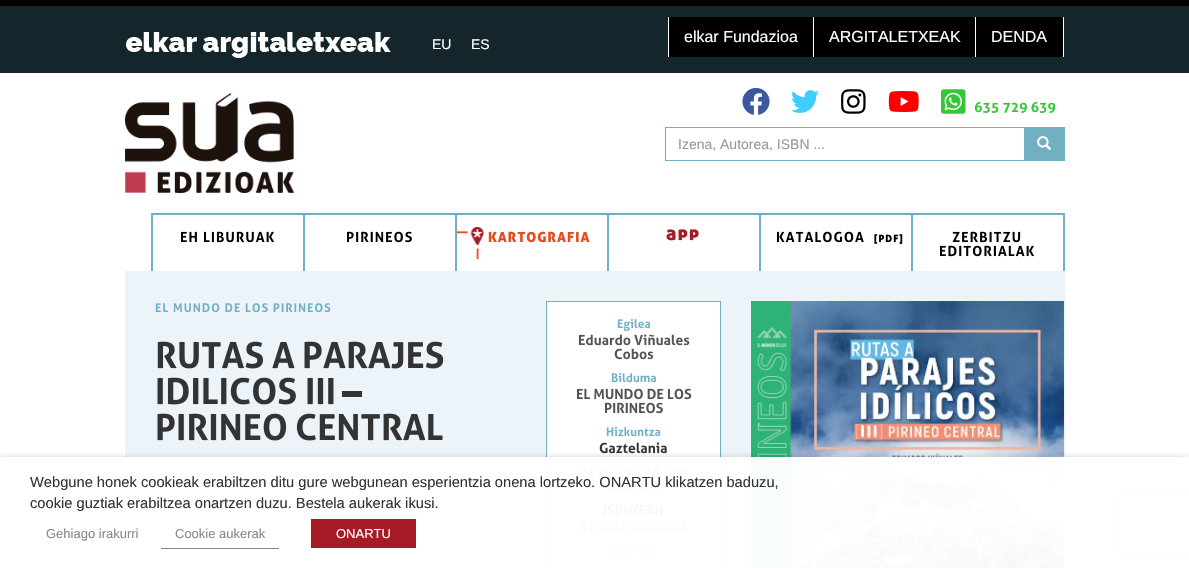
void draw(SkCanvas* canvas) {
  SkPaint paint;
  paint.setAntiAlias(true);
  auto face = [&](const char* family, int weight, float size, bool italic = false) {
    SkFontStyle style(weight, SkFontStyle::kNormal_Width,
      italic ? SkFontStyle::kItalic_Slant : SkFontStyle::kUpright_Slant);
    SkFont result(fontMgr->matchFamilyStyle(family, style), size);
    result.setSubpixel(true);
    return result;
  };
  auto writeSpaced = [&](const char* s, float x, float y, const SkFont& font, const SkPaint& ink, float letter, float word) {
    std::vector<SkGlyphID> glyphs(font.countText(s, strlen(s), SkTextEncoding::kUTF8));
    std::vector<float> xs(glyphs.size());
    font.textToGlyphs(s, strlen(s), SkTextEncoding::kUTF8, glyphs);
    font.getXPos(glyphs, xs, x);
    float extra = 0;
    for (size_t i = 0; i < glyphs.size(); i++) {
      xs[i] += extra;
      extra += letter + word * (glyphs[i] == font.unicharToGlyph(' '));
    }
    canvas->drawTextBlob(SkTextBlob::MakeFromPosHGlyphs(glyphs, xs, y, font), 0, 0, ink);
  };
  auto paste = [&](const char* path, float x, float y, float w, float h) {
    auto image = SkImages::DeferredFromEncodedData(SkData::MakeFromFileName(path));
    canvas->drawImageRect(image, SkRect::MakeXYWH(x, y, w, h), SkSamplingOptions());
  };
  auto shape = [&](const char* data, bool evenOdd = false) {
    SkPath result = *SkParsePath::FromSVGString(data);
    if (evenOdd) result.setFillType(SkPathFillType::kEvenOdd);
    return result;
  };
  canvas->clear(0xffffffff);
  paint.setColor(0xff14252c);
  canvas->drawRect(SkRect::MakeXYWH(0, 6, 1189, 67), paint);
  paint.setColor(0xff000000);
  canvas->drawRect(SkRect::MakeXYWH(0, 0, 1189, 6), paint);
  paste("img/1.png", 126, 32, 265, 26);
  {
    const struct { float x, y, w, h; SkColor color; } items[] = {
      {813, 17, 1, 40, 0xffffffff},
      {668, 17, 1, 40, 0xffffffff},
      {669, 17, 144, 40, 0xff000000},
      {975, 17, 1, 40, 0xffffffff},
      {814, 17, 161, 40, 0xff000000},
      {1063, 17, 1, 40, 0xffffffff},
      {976, 17, 87, 40, 0xff000000},
    };
    for (auto [x, y, w, h, color] : items) {
      paint.setColor(color);
      canvas->drawRect(SkRect::MakeXYWH(x, y, w, h), paint);
    }
  }
  paste("img/2.png", 125, 93, 169, 100);
  paste("img/3.png", 742, 88, 28, 27);
  paste("img/4.png", 791, 90, 28, 23);
  paste("img/5.png", 841, 89, 25, 25);
  paste("img/6.png", 888, 91, 31, 21);
  paste("img/7.png", 941, 89, 25, 25);
  paste("img/8.png", 974, 101, 82, 12);
  paint.setStroke(true);
  paint.setStrokeWidth(1);
  paint.setColor(0xff71b0c3);
  canvas->drawRect(SkRect::MakeXYWH(665.5f, 127.5f, 359, 33), paint);
  paint.setStroke(false);
  canvas->drawRect(SkRect::MakeXYWH(1025, 127, 40, 34), paint);
  paste("img/9.png", 1037, 136, 14, 14);
  {
    const struct { float x, y, w, h; SkColor color; } items[] = {
      {151, 213, 914, 2, 0xff71b0c3},
      {303, 213, 2, 58, 0xff71b0c3},
      {151, 213, 2, 58, 0xff71b0c3},
    };
    for (auto [x, y, w, h, color] : items) {
      paint.setColor(color);
      canvas->drawRect(SkRect::MakeXYWH(x, y, w, h), paint);
    }
  }
  paste("img/10.png", 181, 231, 16, 12);
  paste("img/11.png", 204, 231, 71, 12);
  canvas->drawRect(SkRect::MakeXYWH(455, 213, 2, 58), paint);
  paste("img/12.png", 347, 231, 65, 12);
  canvas->drawRect(SkRect::MakeXYWH(607, 213, 2, 58), paint);
  paste("img/13.png", 457, 227, 27, 32);
  canvas->drawRect(SkRect::MakeXYWH(759, 213, 2, 58), paint);
  canvas->drawRect(SkRect::MakeXYWH(911, 213, 2, 58), paint);
  paste("img/14.png", 777, 231, 87, 12);
  canvas->drawRect(SkRect::MakeXYWH(1063, 213, 2, 58), paint);
  paste("img/15.png", 952, 231, 69, 12);
  paste("img/16.png", 940, 245, 95, 12);
  paint.setColor(0xffecf4f9);
  canvas->drawRect(SkRect::MakeXYWH(125, 271, 940, 297), paint);
  paste("img/17.png", 155, 303, 176, 10);
  paste("img/18.png", 157, 341, 106, 28);
  paste("img/19.png", 272, 341, 23, 28);
  paste("img/20.png", 304, 341, 140, 28);
  paste("img/21.png", 157, 377, 139, 28);
  paste("img/22.png", 307, 377, 27, 28);
  paint.setColor(0xff333333);
  canvas->drawRect(SkRect::MakeXYWH(342, 391, 20, 6), paint);
  paste("img/23.png", 157, 413, 130, 28);
  paste("img/24.png", 296, 413, 147, 28);
  paint.setColor(0xffffffff);
  canvas->drawRect(SkRect::MakeXYWH(546.5f, 301.5f, 174, 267), paint);
  paint.setStroke(true);
  paint.setColor(0xff71b0c3);
  canvas->drawRect(SkRect::MakeXYWH(546.5f, 301.5f, 174, 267), paint);
  paste("img/25.png", 617, 319, 34, 12);
  paste("img/26.png", 579, 334, 111, 12);
  paste("img/27.png", 614, 348, 40, 12);
  paste("img/28.png", 611, 373, 45, 10);
  paste("img/29.png", 577, 388, 115, 12);
  paste("img/30.png", 605, 402, 58, 12);
  paste("img/31.png", 606, 427, 55, 10);
  paste("img/32.png", 599, 442, 68, 12);
  paste("img/33.png", 579, 466, 108, 13);
  paste("img/34.png", 608, 480, 50, 12);
  paste("img/35.png", 604, 504, 59, 12);
  paste("img/36.png", 579, 520, 109, 13);
  paste("img/37.png", 610, 545, 48, 10);
  paste("img/38.png", 751, 301, 313, 267);
  canvas->save();
  canvas->clipRect(SkRect::MakeXYWH(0, 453, 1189, 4));
  paint.setStroke(false);
  paint.setColor(0x80000000);
  paint.setMaskFilter(SkMaskFilter::MakeBlur(kNormal_SkBlurStyle, 5));
  canvas->drawRect(SkRect::MakeXYWH(0, 462, 1189, 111), paint);
  paint.setMaskFilter(nullptr);
  canvas->restore();
  canvas->save();
  canvas->clipPath(shape("M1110 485H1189V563H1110ZM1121 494H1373C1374 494 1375 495 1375 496V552C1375 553 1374 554 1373 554H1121C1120 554 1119 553 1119 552V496C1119 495 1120 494 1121 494Z", true), true);
  paint.setColor(0xff808080);
  paint.setMaskFilter(SkMaskFilter::MakeBlur(kNormal_SkBlurStyle, 2.5f));
  canvas->drawRoundRect(SkRect::MakeXYWH(1119, 494, 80, 60), 2, 2, paint);
  paint.setMaskFilter(nullptr);
  canvas->restore();
  {
    const struct { float x, y, w, h; SkColor color; } items[] = {
      {125, 457, 1064, 111, 0xf7ffffff},
      {161, 548, 118, 1, 0xff898888},
      {311, 519, 105, 29, 0xffa61b27},
    };
    for (auto [x, y, w, h, color] : items) {
      paint.setColor(color);
      canvas->drawRect(SkRect::MakeXYWH(x, y, w, h), paint);
    }
  }
  auto f0 = face("Liberation Sans", 400, 14);
  paint.setColor(0xffffffff);
  canvas->drawString("EU", 432, 49, f0, paint);
  canvas->drawString("ES", 471, 49, f0, paint);
  auto f1 = face("Liberation Sans", 400, 16);
  {
    const struct { const char* s; float x, y; } items[] = {
      {"elkar Fundazioa", 684, 42},
      {"ARGITALETXEAK", 829, 42},
      {"DENDA", 991, 42},
    };
    for (auto [s, x, y] : items) {
      canvas->drawString(s, x, y, f1, paint);
    }
  }
  paint.setColor(0xff999999);
  canvas->drawString("Izena, Autorea, ISBN ...", 678, 149, f0, paint);
  auto f2 = face("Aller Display", 400, 14);
  paint.setColor(0xffe34d21);
  writeSpaced("KARTOGRAFIA", 488, 242, f2, paint, 1, 0);
  auto f3 = face("Aller Display", 400, 20);
  paint.setColor(0xffa61b27);
  writeSpaced("app", 666, 240, f3, paint, 1, 0);
  auto f4 = face("Aller Display", 400, 10);
  paint.setColor(0xff000000);
  writeSpaced("[PDF]", 874, 242, f4, paint, 1, 0);
  auto f5 = face("Liberation Sans", 400, 14.67f);
  paint.setColor(0xff333333);
  canvas->drawString("Webgune honek cookieak erabiltzen ditu gure webgunean esperientzia onena lortzeko. ONARTU klikatzen baduzu,", 30, 487, f5, paint);
  canvas->drawString("cookie guztiak erabiltzea onartzen duzu. Bestela aukerak ikusi.", 30, 508, f5, paint);
  auto f6 = face("Liberation Sans", 400, 13);
  paint.setColor(0xff898888);
  canvas->drawString("Gehiago irakurri", 46, 538, f6, paint);
  canvas->drawString("Cookie aukerak", 175, 538, f6, paint);
  paint.setColor(0xffffffff);
  canvas->drawString("ONARTU", 336, 538, f6, paint);
}
